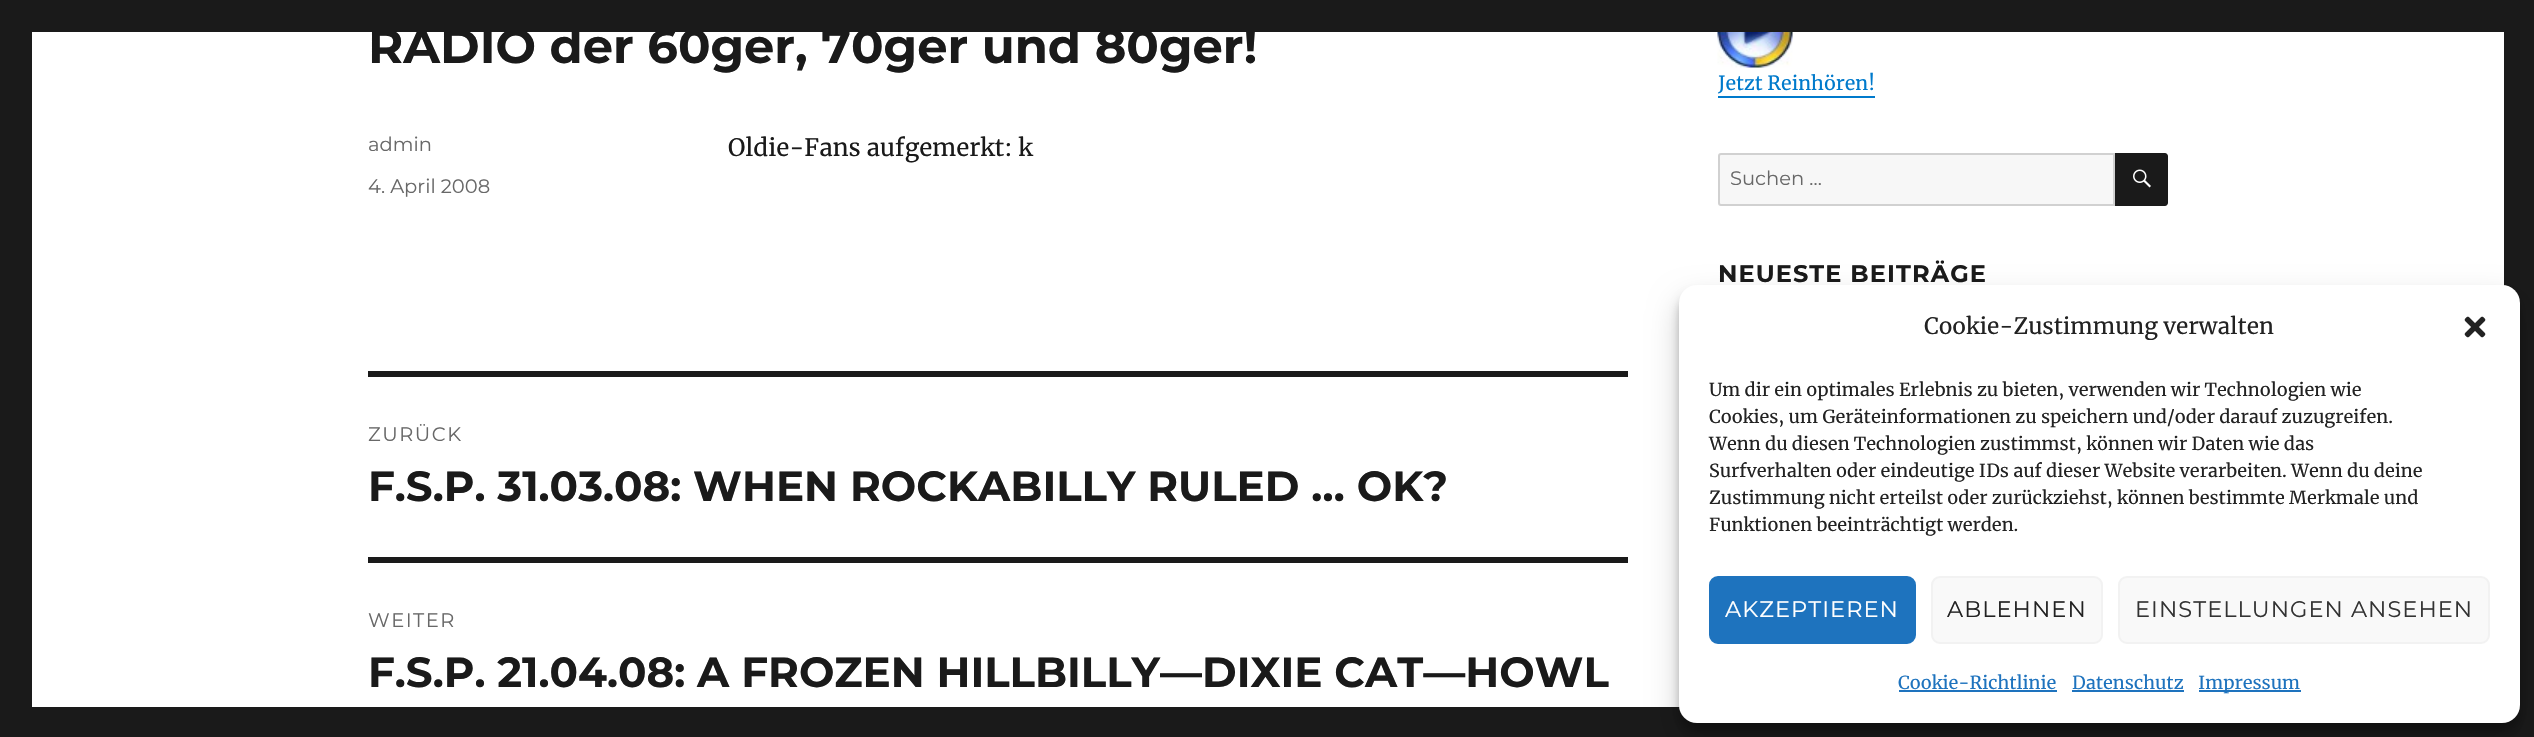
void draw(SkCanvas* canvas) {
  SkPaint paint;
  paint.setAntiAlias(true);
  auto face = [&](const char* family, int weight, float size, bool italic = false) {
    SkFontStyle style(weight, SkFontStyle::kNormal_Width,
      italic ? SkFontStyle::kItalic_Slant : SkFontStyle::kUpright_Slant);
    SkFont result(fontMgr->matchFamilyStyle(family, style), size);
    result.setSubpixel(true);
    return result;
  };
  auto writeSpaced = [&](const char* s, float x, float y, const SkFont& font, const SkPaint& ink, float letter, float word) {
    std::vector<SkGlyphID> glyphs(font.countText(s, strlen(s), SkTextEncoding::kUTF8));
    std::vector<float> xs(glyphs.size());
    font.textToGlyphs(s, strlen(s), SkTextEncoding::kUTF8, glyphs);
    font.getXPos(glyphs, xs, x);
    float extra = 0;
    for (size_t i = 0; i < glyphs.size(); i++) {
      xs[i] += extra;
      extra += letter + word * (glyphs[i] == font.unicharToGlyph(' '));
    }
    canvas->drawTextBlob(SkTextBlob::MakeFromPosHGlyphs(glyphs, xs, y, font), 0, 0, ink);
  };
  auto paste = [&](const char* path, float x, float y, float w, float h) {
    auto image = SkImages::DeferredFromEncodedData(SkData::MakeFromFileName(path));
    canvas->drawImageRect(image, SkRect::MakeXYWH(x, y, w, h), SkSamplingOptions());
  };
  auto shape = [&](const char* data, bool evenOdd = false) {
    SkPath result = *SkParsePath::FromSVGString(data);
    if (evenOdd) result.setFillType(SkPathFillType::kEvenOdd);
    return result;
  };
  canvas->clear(0xff1a1a1a);
  {
    const struct { float x, y, w, h; SkColor color; } items[] = {
      {32, 32, 2472, 675, 0xffffffff},
      {368, 371, 1260, 6, 0xff1a1a1a},
      {368, 557, 1260, 6, 0xff1a1a1a},
      {1718, 96, 157, 2, 0xff007acc},
    };
    for (auto [x, y, w, h, color] : items) {
      paint.setColor(color);
      canvas->drawRect(SkRect::MakeXYWH(x, y, w, h), paint);
    }
  }
  paste("img/1.png", 1717, 32, 76, 36);
  paint.setColor(0xfff7f7f7);
  canvas->drawPath(shape("M1721 154H2114V205H1721C1720 205 1719 204 1719 203V156C1719 155 1720 154 1721 154Z"), paint);
  paint.setStroke(true);
  paint.setStrokeWidth(2);
  paint.setColor(0xffd1d1d1);
  canvas->drawPath(shape("M1721 154H2114V205H1721C1720 205 1719 204 1719 203V156C1719 155 1720 154 1721 154Z"), paint);
  paint.setStroke(false);
  paint.setColor(0xff1a1a1a);
  canvas->drawPath(shape("M2115 153H2165C2166.5 153 2168 154.5 2168 156V203C2168 204.5 2166.5 206 2165 206H2115Z"), paint);
  paste("img/2.png", 2133, 169, 18, 19);
  paint.setColor(0x3b000000);
  paint.setMaskFilter(SkMaskFilter::MakeBlur(kNormal_SkBlurStyle, 4.5f));
  canvas->drawRoundRect(SkRect::MakeXYWH(1679, 294, 841, 438), 18, 18, paint);
  paint.setMaskFilter(nullptr);
  paint.setColor(0x30000000);
  paint.setMaskFilter(SkMaskFilter::MakeBlur(kNormal_SkBlurStyle, 15));
  canvas->drawRoundRect(SkRect::MakeXYWH(1679, 300, 841, 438), 18, 18, paint);
  paint.setMaskFilter(nullptr);
  paint.setColor(0xffffffff);
  canvas->drawRoundRect(SkRect::MakeXYWH(1679, 285, 841, 438), 18, 18, paint);
  paste("img/3.png", 2464, 316, 22, 22);
  paint.setColor(0xff1e73be);
  canvas->drawRoundRect(SkRect::MakeXYWH(1710, 577, 205, 66), 8, 8, paint);
  paint.setStroke(true);
  canvas->drawRoundRect(SkRect::MakeXYWH(1710, 577, 205, 66), 8, 8, paint);
  paint.setStroke(false);
  paint.setColor(0xfff9f9f9);
  canvas->drawRoundRect(SkRect::MakeXYWH(1932, 577, 170, 66), 8, 8, paint);
  paint.setStroke(true);
  paint.setColor(0xfff2f2f2);
  canvas->drawRoundRect(SkRect::MakeXYWH(1932, 577, 170, 66), 8, 8, paint);
  paint.setStroke(false);
  paint.setColor(0xfff9f9f9);
  canvas->drawRoundRect(SkRect::MakeXYWH(2119, 577, 370, 66), 8, 8, paint);
  paint.setStroke(true);
  paint.setColor(0xfff2f2f2);
  canvas->drawRoundRect(SkRect::MakeXYWH(2119, 577, 370, 66), 8, 8, paint);
  paint.setStroke(false);
  {
    const struct { float x, y, w, h; SkColor color; } items[] = {
      {1899, 690, 158, 2, 0xff1e73be},
      {2072, 690, 112, 2, 0xff1e73be},
      {2199, 690, 102, 2, 0xff1e73be},
    };
    for (auto [x, y, w, h, color] : items) {
      paint.setColor(color);
      canvas->drawRect(SkRect::MakeXYWH(x, y, w, h), paint);
    }
  }
  auto f0 = face("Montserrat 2", 100, 48);
  paint.setColor(0xff1a1a1a);
  canvas->drawString("RADIO der 60ger, 70ger und 80ger!", 368, 63, f0, paint);
  auto f1 = face("Montserrat", 100, 19.5f);
  paint.setColor(0xff686868);
  canvas->drawString("admin", 368, 151, f1, paint);
  canvas->drawString("4. April 2008", 368, 193, f1, paint);
  auto f2 = face("Merriweather", 400, 24);
  paint.setColor(0xff1a1a1a);
  canvas->drawString("Oldie-Fans aufgemerkt: k", 728, 156, f2, paint);
  paint.setColor(0xff686868);
  writeSpaced("ZURÜCK", 368, 441, f1, paint, 1.5f, 0);
  auto f3 = face("Montserrat 2", 100, 42);
  paint.setColor(0xff1a1a1a);
  canvas->drawString("F.S.P. 31.03.08: WHEN ROCKABILLY RULED … OK?", 368, 501, f3, paint);
  paint.setColor(0xff686868);
  writeSpaced("WEITER", 368, 627, f1, paint, 1.5f, 0);
  paint.setColor(0xff1a1a1a);
  canvas->drawString("F.S.P. 21.04.08: A FROZEN HILLBILLY—DIXIE CAT—HOWL", 368, 687, f3, paint);
  auto f4 = face("Merriweather", 400, 19.5f);
  paint.setColor(0xff007acc);
  canvas->drawString("Jetzt Reinhören!", 1718, 90, f4, paint);
  paint.setColor(0xff686868);
  canvas->drawString("Suchen …", 1730, 185, f1, paint);
  auto f5 = face("Montserrat 2", 100, 24);
  paint.setColor(0xff1a1a1a);
  writeSpaced("NEUESTE BEITRÄGE", 1718, 282, f5, paint, 1.1f, 0);
  auto f6 = face("Merriweather", 400, 22.5f);
  paint.setColor(0xff222222);
  canvas->drawString("Cookie-Zustimmung verwalten", 1924, 334, f6, paint);
  auto f7 = face("Merriweather", 400, 18);
  {
    const struct { const char* s; float x, y; } items[] = {
      {"Um dir ein optimales Erlebnis zu bieten, verwenden wir Technologien wie", 1709, 396},
      {"Cookies, um Geräteinformationen zu speichern und/oder darauf zuzugreifen.", 1709, 423},
      {"Wenn du diesen Technologien zustimmst, können wir Daten wie das", 1709, 450},
      {"Surfverhalten oder eindeutige IDs auf dieser Website verarbeiten. Wenn du deine", 1709, 477},
      {"Zustimmung nicht erteilst oder zurückziehst, können bestimmte Merkmale und", 1709, 504},
      {"Funktionen beeinträchtigt werden.", 1709, 531},
    };
    for (auto [s, x, y] : items) {
      canvas->drawString(s, x, y, f7, paint);
    }
  }
  auto f8 = face("Montserrat", 100, 22.5f);
  paint.setColor(0xffffffff);
  writeSpaced("AKZEPTIEREN", 1725, 617, f8, paint, 1.05f, 0);
  paint.setColor(0xff222222);
  writeSpaced("ABLEHNEN", 1947, 617, f8, paint, 1.05f, 0);
  paint.setColor(0xff333333);
  writeSpaced("EINSTELLUNGEN ANSEHEN", 2135, 617, f8, paint, 1.05f, 0);
  paint.setColor(0xff1e73be);
  {
    const struct { const char* s; float x, y; } items[] = {
      {"Cookie-Richtlinie", 1898, 689},
      {"Datenschutz", 2072, 689},
      {"Impressum", 2198, 689},
    };
    for (auto [s, x, y] : items) {
      canvas->drawString(s, x, y, f7, paint);
    }
  }
}
